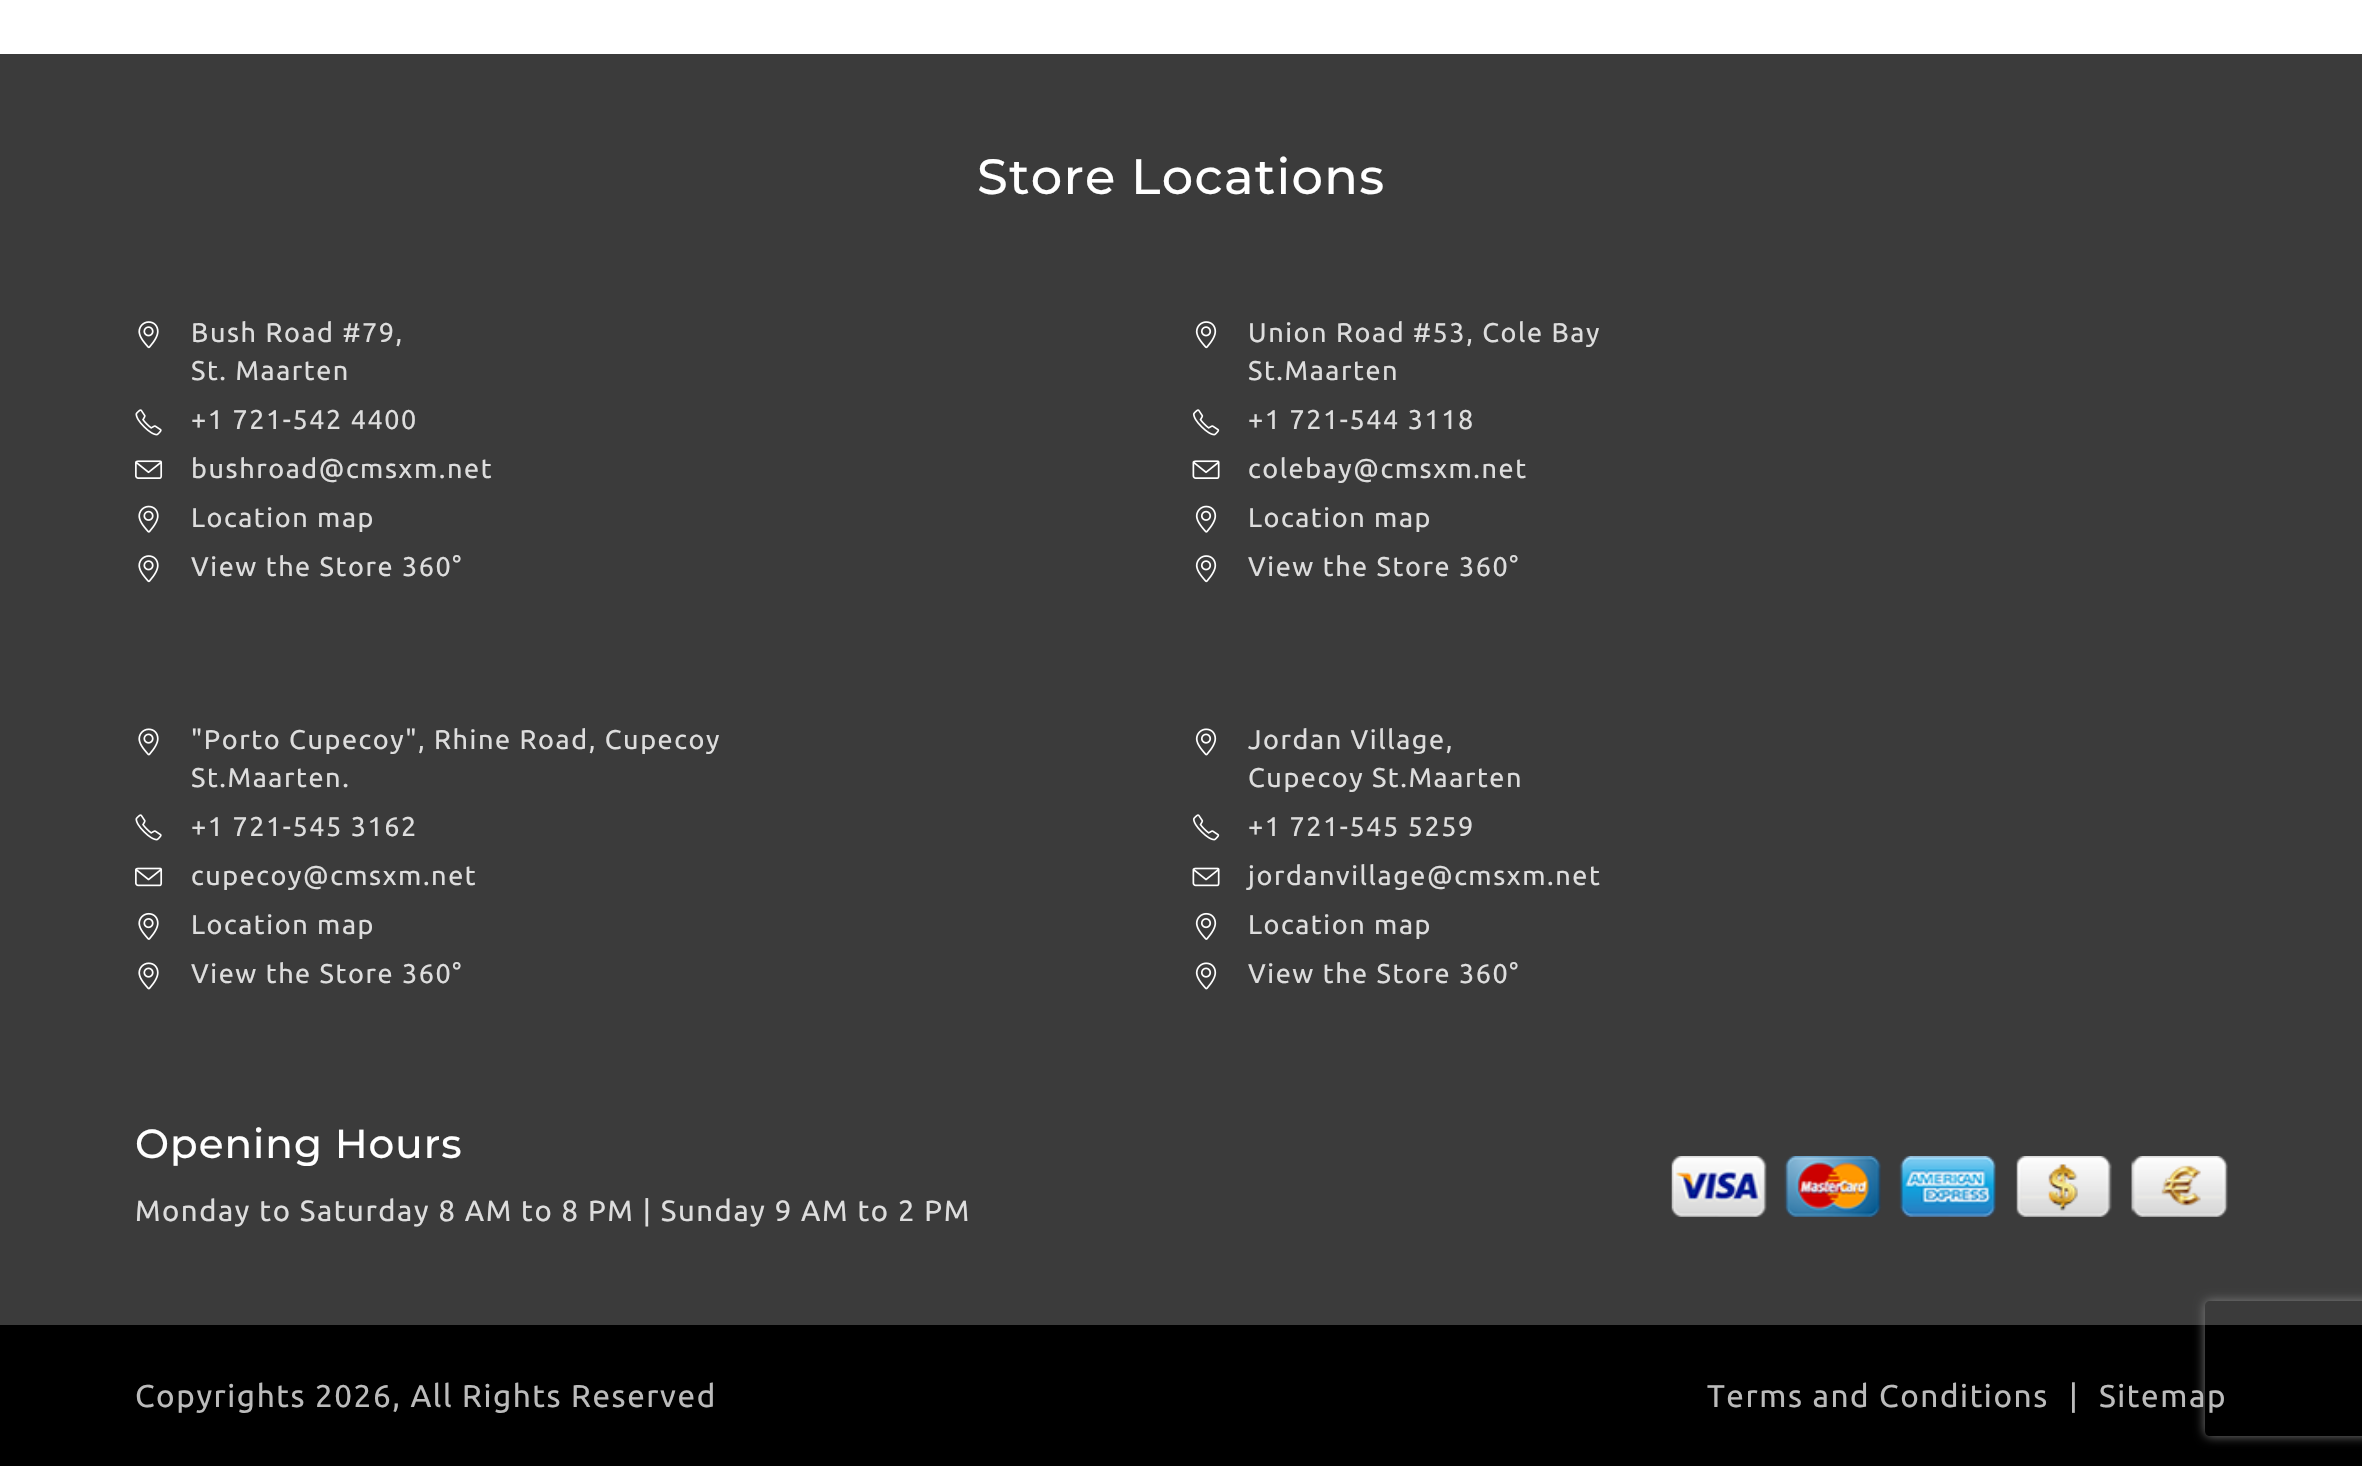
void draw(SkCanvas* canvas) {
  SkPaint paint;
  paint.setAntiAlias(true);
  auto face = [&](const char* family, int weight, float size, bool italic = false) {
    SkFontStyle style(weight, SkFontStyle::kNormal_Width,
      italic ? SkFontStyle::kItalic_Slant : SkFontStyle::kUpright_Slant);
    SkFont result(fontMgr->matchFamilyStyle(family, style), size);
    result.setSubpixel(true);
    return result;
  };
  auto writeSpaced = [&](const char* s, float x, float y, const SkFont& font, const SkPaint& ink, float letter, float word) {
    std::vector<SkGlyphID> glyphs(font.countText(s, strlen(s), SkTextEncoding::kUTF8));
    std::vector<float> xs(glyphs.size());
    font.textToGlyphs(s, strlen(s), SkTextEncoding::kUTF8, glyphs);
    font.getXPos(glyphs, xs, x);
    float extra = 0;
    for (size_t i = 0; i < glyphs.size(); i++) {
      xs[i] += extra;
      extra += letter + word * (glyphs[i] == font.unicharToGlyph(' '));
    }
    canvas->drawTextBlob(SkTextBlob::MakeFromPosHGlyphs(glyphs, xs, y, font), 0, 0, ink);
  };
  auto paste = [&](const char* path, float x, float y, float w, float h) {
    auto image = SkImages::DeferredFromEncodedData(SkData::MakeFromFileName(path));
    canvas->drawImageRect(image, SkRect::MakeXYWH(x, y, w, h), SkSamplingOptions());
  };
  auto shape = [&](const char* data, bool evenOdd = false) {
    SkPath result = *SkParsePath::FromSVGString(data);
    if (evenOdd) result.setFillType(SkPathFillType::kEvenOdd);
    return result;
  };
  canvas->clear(0xff000000);
  paint.setColor(0xffffffff);
  canvas->drawRect(SkRect::MakeXYWH(0, 0, 2362, 54), paint);
  paint.setColor(0xff3b3b3b);
  canvas->drawRect(SkRect::MakeXYWH(0, 54, 2362, 1271), paint);
  paste("img/1.png", 138, 321, 21, 28);
  paste("img/2.png", 135, 409, 27, 27);
  paste("img/3.png", 135, 460, 28, 19);
  paste("img/4.png", 138, 505, 21, 28);
  paste("img/1.png", 138, 555, 21, 28);
  paste("img/5.png", 1195, 321, 22, 28);
  paste("img/6.png", 1192, 409, 28, 27);
  paste("img/7.png", 1192, 460, 28, 19);
  paste("img/8.png", 1195, 505, 22, 28);
  paste("img/5.png", 1195, 555, 22, 28);
  paste("img/9.png", 138, 728, 21, 28);
  paste("img/2.png", 135, 814, 27, 27);
  paste("img/10.png", 135, 867, 28, 20);
  paste("img/11.png", 138, 912, 21, 28);
  paste("img/9.png", 138, 962, 21, 28);
  paste("img/12.png", 1195, 728, 22, 28);
  paste("img/6.png", 1192, 814, 28, 27);
  paste("img/13.png", 1192, 867, 28, 20);
  paste("img/14.png", 1195, 912, 22, 28);
  paste("img/12.png", 1195, 962, 22, 28);
  paste("img/15.png", 1671, 1156, 557, 61);
  canvas->save();
  canvas->clipPath(shape("M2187 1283H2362V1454H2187ZM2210 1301H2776C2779 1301 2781 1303 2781 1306V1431C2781 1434 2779 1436 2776 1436H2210C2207 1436 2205 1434 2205 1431V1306C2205 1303 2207 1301 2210 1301Z", true), true);
  paint.setColor(0xff808080);
  paint.setMaskFilter(SkMaskFilter::MakeBlur(kNormal_SkBlurStyle, 5.5f));
  canvas->drawRoundRect(SkRect::MakeXYWH(2205, 1301, 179, 135), 5, 5, paint);
  paint.setMaskFilter(nullptr);
  canvas->restore();
  auto f0 = face("Montserrat", 500, 49.5f);
  paint.setColor(0xffffffff);
  writeSpaced("Store Locations", 977, 194, f0, paint, 1.25f, 0);
  auto f1 = face("Ubuntu", 400, 27);
  paint.setColor(0xffdddddd);
  {
    const struct { const char* s; float x, y; } items[] = {
      {"Bush Road #79,", 191, 342},
      {"St. Maarten", 191, 380},
      {"+1 721-542 4400", 191, 429},
      {"bushroad@cmsxm.net", 191, 478},
      {"Location map", 191, 527},
      {"View the Store 360°", 191, 576},
      {"Union Road #53, Cole Bay", 1248, 342},
      {"St.Maarten", 1248, 380},
      {"+1 721-544 3118", 1248, 429},
      {"colebay@cmsxm.net", 1248, 478},
      {"Location map", 1248, 527},
      {"View the Store 360°", 1248, 576},
      {"\"Porto Cupecoy\", Rhine Road, Cupecoy", 191, 749},
      {"St.Maarten.", 191, 787},
      {"+1 721-545 3162", 191, 836},
      {"cupecoy@cmsxm.net", 191, 885},
      {"Location map", 191, 934},
      {"View the Store 360°", 191, 983},
      {"Jordan Village,", 1248, 749},
      {"Cupecoy St.Maarten", 1248, 787},
      {"+1 721-545 5259", 1248, 836},
      {"jordanvillage@cmsxm.net", 1248, 885},
      {"Location map", 1248, 934},
      {"View the Store 360°", 1248, 983},
    };
    for (auto [s, x, y] : items) {
      writeSpaced(s, x, y, f1, paint, 1.57f, 0);
    }
  }
  auto f2 = face("Montserrat", 500, 40.5f);
  paint.setColor(0xffffffff);
  writeSpaced("Opening Hours", 135, 1158, f2, paint, 1, 0);
  auto f3 = face("Ubuntu", 400, 29.25f);
  paint.setColor(0xffdddddd);
  writeSpaced("Monday to Saturday 8 AM to 8 PM | Sunday 9 AM to 2 PM", 135, 1221, f3, paint, 1.57f, 0);
  auto f4 = face("Ubuntu", 400, 31.5f);
  paint.setColor(0xffbbbbbb);
  {
    const struct { const char* s; float x, y; } items[] = {
      {"Copyrights 2026, All Rights Reserved", 135, 1407},
      {"Terms and Conditions", 1707, 1407},
      {"|", 2069, 1407},
      {"Sitemap", 2099, 1407},
    };
    for (auto [s, x, y] : items) {
      writeSpaced(s, x, y, f4, paint, 1.57f, 0);
    }
  }
}
